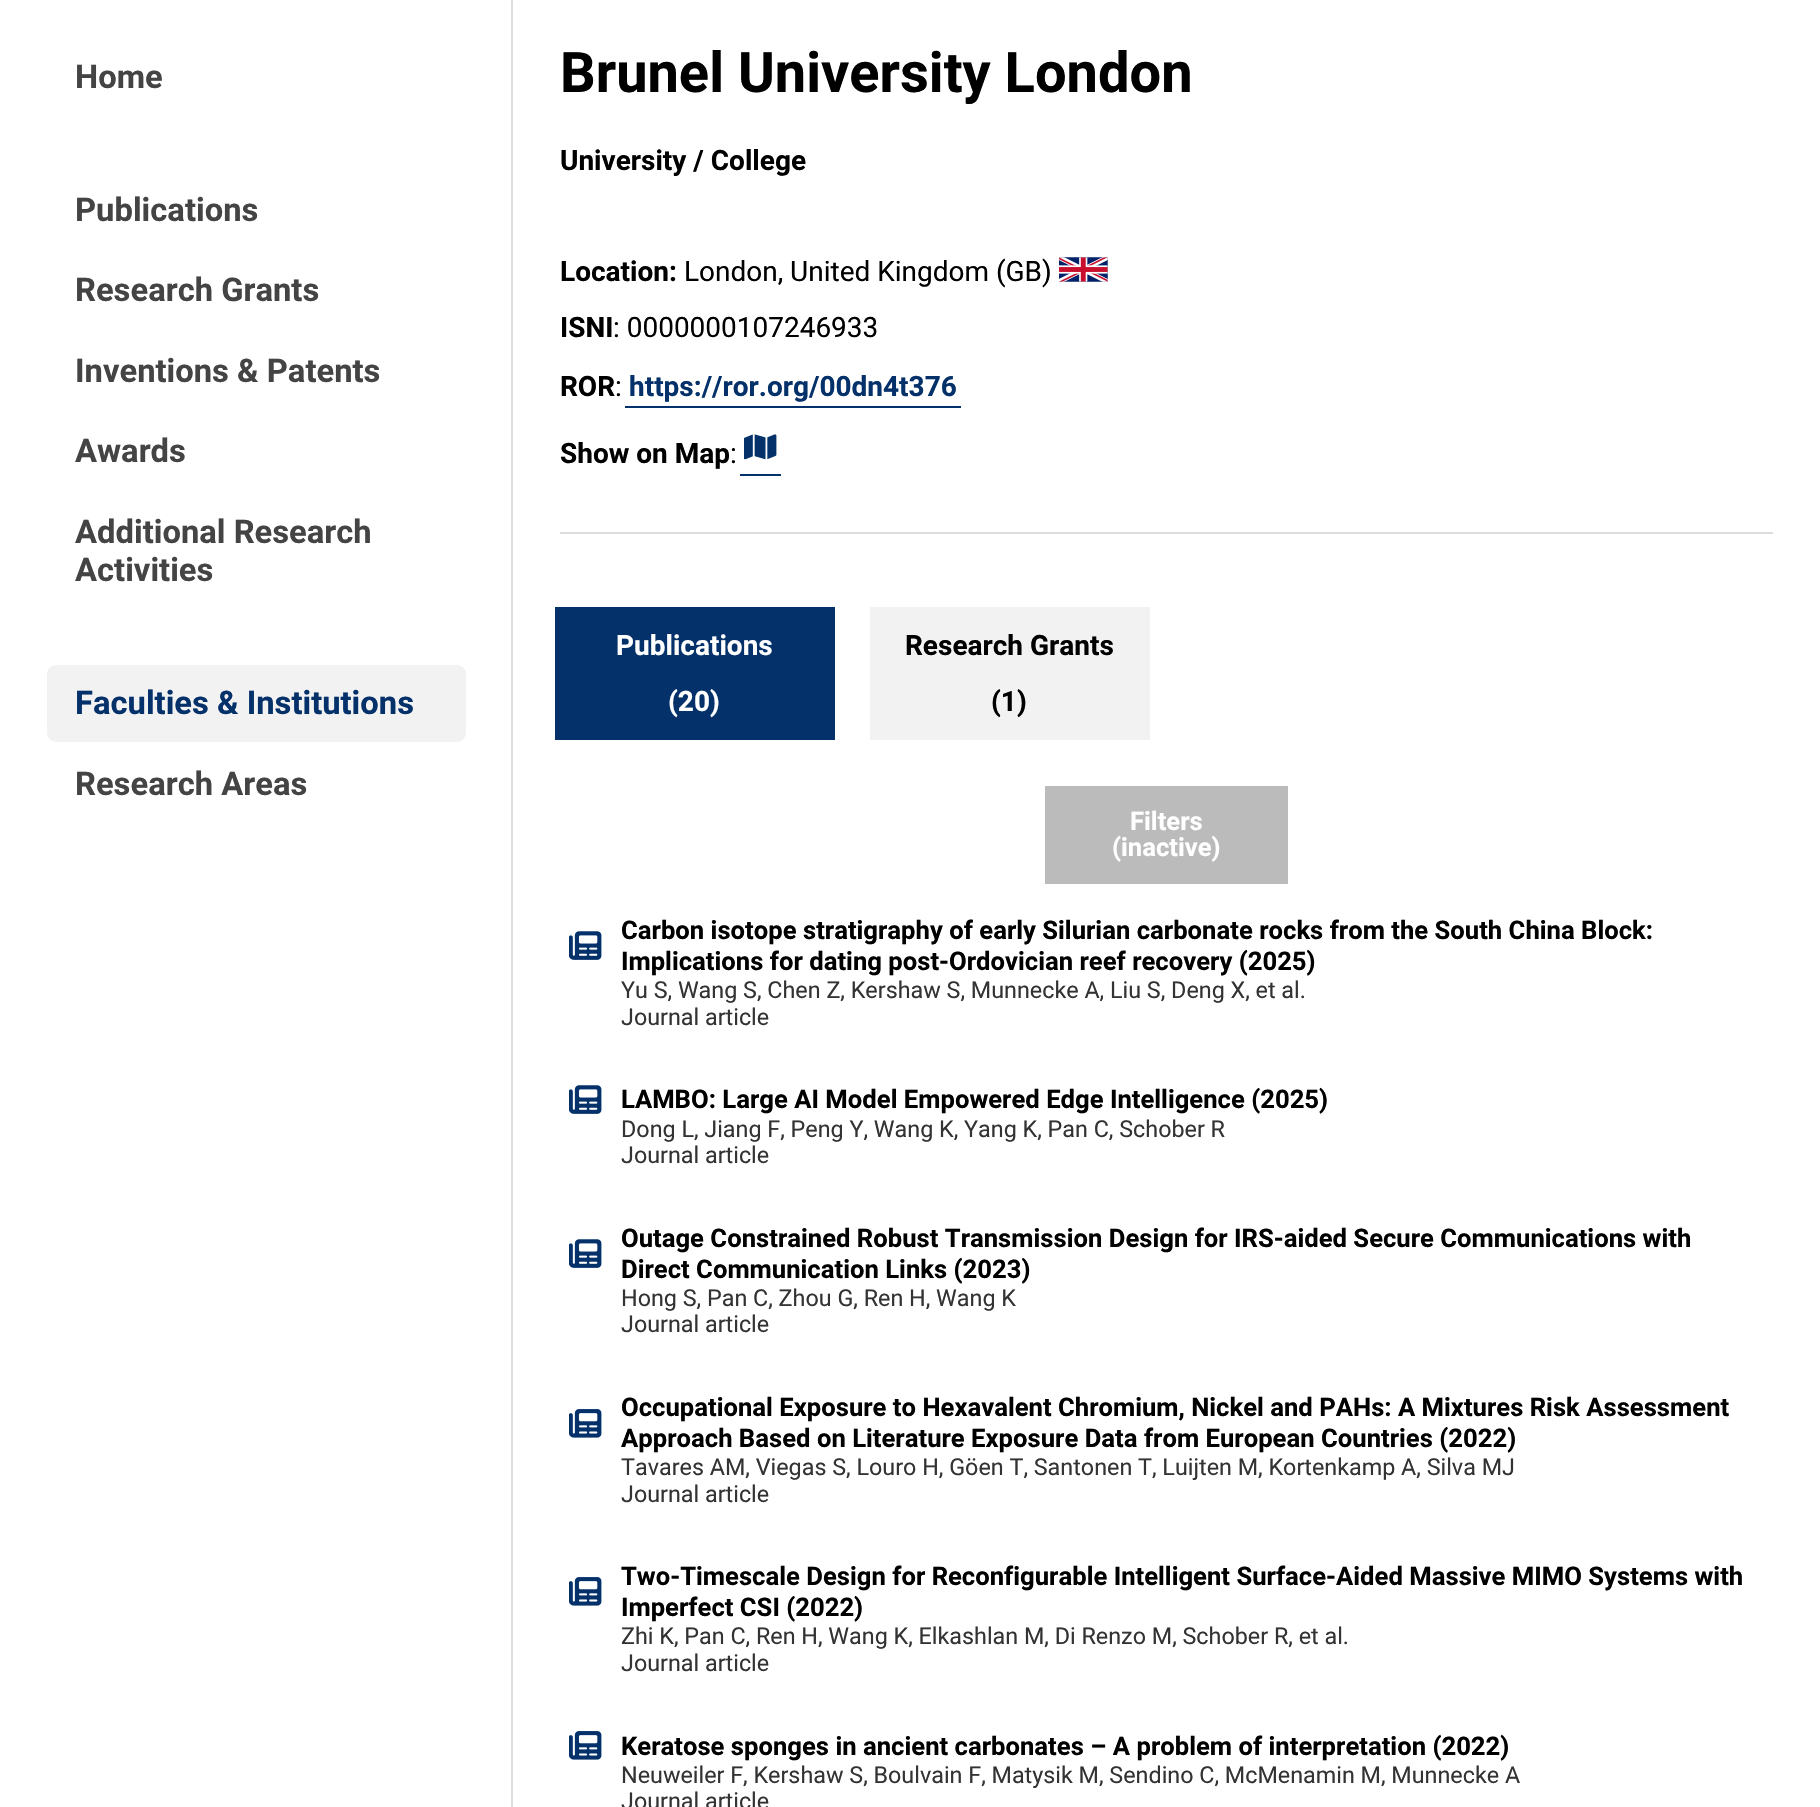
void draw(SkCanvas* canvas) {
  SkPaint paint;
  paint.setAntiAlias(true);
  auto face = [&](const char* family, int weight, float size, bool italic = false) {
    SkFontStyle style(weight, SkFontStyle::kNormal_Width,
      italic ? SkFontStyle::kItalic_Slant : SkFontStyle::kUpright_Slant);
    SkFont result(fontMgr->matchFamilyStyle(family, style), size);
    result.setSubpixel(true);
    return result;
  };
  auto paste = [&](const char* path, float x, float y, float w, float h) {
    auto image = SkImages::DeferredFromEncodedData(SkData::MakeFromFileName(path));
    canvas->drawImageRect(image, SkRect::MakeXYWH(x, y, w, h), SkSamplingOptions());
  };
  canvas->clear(0xffffffff);
  paint.setColor(0xffdddddd);
  canvas->drawRect(SkRect::MakeXYWH(511, 0, 2, 1807), paint);
  paint.setColor(0xfff2f2f2);
  canvas->drawRoundRect(SkRect::MakeXYWH(47, 665, 419, 77), 9, 9, paint);
  paste("img/1.png", 1059, 257, 49, 25);
  paint.setColor(0xff04316a);
  canvas->drawRect(SkRect::MakeXYWH(625, 406, 336, 2), paint);
  paste("img/2.png", 744, 434, 33, 26);
  {
    const struct { float x, y, w, h; SkColor color; } items[] = {
      {740, 474, 41, 2, 0xff04316a},
      {560, 532, 1213, 2, 0xffdddddd},
      {555, 607, 280, 133, 0xff04316a},
      {870, 607, 280, 133, 0xfff2f2f2},
      {1045, 786, 243, 98, 0xffbbbbbb},
    };
    for (auto [x, y, w, h, color] : items) {
      paint.setColor(color);
      canvas->drawRect(SkRect::MakeXYWH(x, y, w, h), paint);
    }
  }
  paste("img/3.png", 569, 931, 33, 29);
  paste("img/3.png", 569, 1085, 33, 29);
  paste("img/3.png", 569, 1239, 33, 29);
  paste("img/4.png", 569, 1409, 33, 29);
  paste("img/4.png", 569, 1577, 33, 29);
  paste("img/4.png", 569, 1731, 33, 29);
  auto f0 = face("Roboto", 700, 32.75f);
  paint.setColor(0xff444444);
  {
    const struct { const char* s; float x, y; } items[] = {
      {"Home", 75, 88},
      {"Publications", 75, 221},
      {"Research Grants", 75, 301},
      {"Inventions & Patents", 75, 382},
      {"Awards", 75, 462},
      {"Additional Research", 75, 543},
      {"Activities", 75, 581},
    };
    for (auto [s, x, y] : items) {
      canvas->drawString(s, x, y, f0, paint);
    }
  }
  paint.setColor(0xff04316a);
  canvas->drawString("Faculties & Institutions", 75, 714, f0, paint);
  paint.setColor(0xff444444);
  canvas->drawString("Research Areas", 75, 795, f0, paint);
  auto f1 = face("Roboto", 700, 56);
  paint.setColor(0xff000000);
  canvas->drawString("Brunel University London", 560, 92, f1, paint);
  auto f2 = face("Roboto", 700, 28);
  canvas->drawString("University / College", 560, 170, f2, paint);
  canvas->drawString("Location:", 560, 281, f2, paint);
  auto f3 = face("Roboto", 400, 28);
  canvas->drawString("London, United Kingdom (GB)", 684, 281, f3, paint);
  canvas->drawString("ISNI", 560, 337, f2, paint);
  canvas->drawString(": 0000000107246933", 613, 337, f3, paint);
  canvas->drawString("ROR", 560, 396, f2, paint);
  canvas->drawString(":", 615, 396, f3, paint);
  paint.setColor(0xff04316a);
  canvas->drawString("https://ror.org/00dn4t376", 629, 396, f2, paint);
  paint.setColor(0xff000000);
  canvas->drawString("Show on Map", 560, 463, f2, paint);
  canvas->drawString(":", 730, 463, f3, paint);
  paint.setColor(0xffffffff);
  canvas->drawString("Publications", 616, 655, f2, paint);
  canvas->drawString("(20)", 668, 711, f2, paint);
  paint.setColor(0xff000000);
  canvas->drawString("Research Grants", 905, 655, f2, paint);
  canvas->drawString("(1)", 991, 711, f2, paint);
  auto f4 = face("Roboto", 700, 25.65f);
  paint.setColor(0xffffffff);
  canvas->drawString("Filters", 1130, 830, f4, paint);
  canvas->drawString("(inactive)", 1112, 856, f4, paint);
  paint.setColor(0xff000000);
  canvas->drawString("Carbon isotope stratigraphy of early Silurian carbonate rocks from the South China Block:", 621, 939, f4, paint);
  canvas->drawString("Implications for dating post-Ordovician reef recovery (2025)", 621, 970, f4, paint);
  auto f5 = face("Roboto", 400, 23.35f);
  paint.setColor(0xff333333);
  canvas->drawString("Yu S, Wang S, Chen Z, Kershaw S, Munnecke A, Liu S, Deng X, et al.", 621, 998, f5, paint);
  canvas->drawString("Journal article", 621, 1025, f5, paint);
  paint.setColor(0xff000000);
  canvas->drawString("LAMBO: Large AI Model Empowered Edge Intelligence (2025)", 621, 1108, f4, paint);
  paint.setColor(0xff333333);
  canvas->drawString("Dong L, Jiang F, Peng Y, Wang K, Yang K, Pan C, Schober R", 621, 1137, f5, paint);
  canvas->drawString("Journal article", 621, 1163, f5, paint);
  paint.setColor(0xff000000);
  canvas->drawString("Outage Constrained Robust Transmission Design for IRS-aided Secure Communications with", 621, 1247, f4, paint);
  canvas->drawString("Direct Communication Links (2023)", 621, 1278, f4, paint);
  paint.setColor(0xff333333);
  canvas->drawString("Hong S, Pan C, Zhou G, Ren H, Wang K", 621, 1306, f5, paint);
  canvas->drawString("Journal article", 621, 1332, f5, paint);
  paint.setColor(0xff000000);
  canvas->drawString("Occupational Exposure to Hexavalent Chromium, Nickel and PAHs: A Mixtures Risk Assessment", 621, 1416, f4, paint);
  canvas->drawString("Approach Based on Literature Exposure Data from European Countries (2022)", 621, 1447, f4, paint);
  paint.setColor(0xff333333);
  canvas->drawString("Tavares AM, Viegas S, Louro H, Göen T, Santonen T, Luijten M, Kortenkamp A, Silva MJ", 621, 1475, f5, paint);
  canvas->drawString("Journal article", 621, 1502, f5, paint);
  paint.setColor(0xff000000);
  canvas->drawString("Two-Timescale Design for Reconfigurable Intelligent Surface-Aided Massive MIMO Systems with", 621, 1585, f4, paint);
  canvas->drawString("Imperfect CSI (2022)", 621, 1616, f4, paint);
  paint.setColor(0xff333333);
  canvas->drawString("Zhi K, Pan C, Ren H, Wang K, Elkashlan M, Di Renzo M, Schober R, et al.", 621, 1644, f5, paint);
  canvas->drawString("Journal article", 621, 1671, f5, paint);
  paint.setColor(0xff000000);
  canvas->drawString("Keratose sponges in ancient carbonates – A problem of interpretation (2022)", 621, 1755, f4, paint);
  paint.setColor(0xff333333);
  canvas->drawString("Neuweiler F, Kershaw S, Boulvain F, Matysik M, Sendino C, McMenamin M, Munnecke A", 621, 1783, f5, paint);
  canvas->drawString("Journal article", 621, 1809, f5, paint);
}
